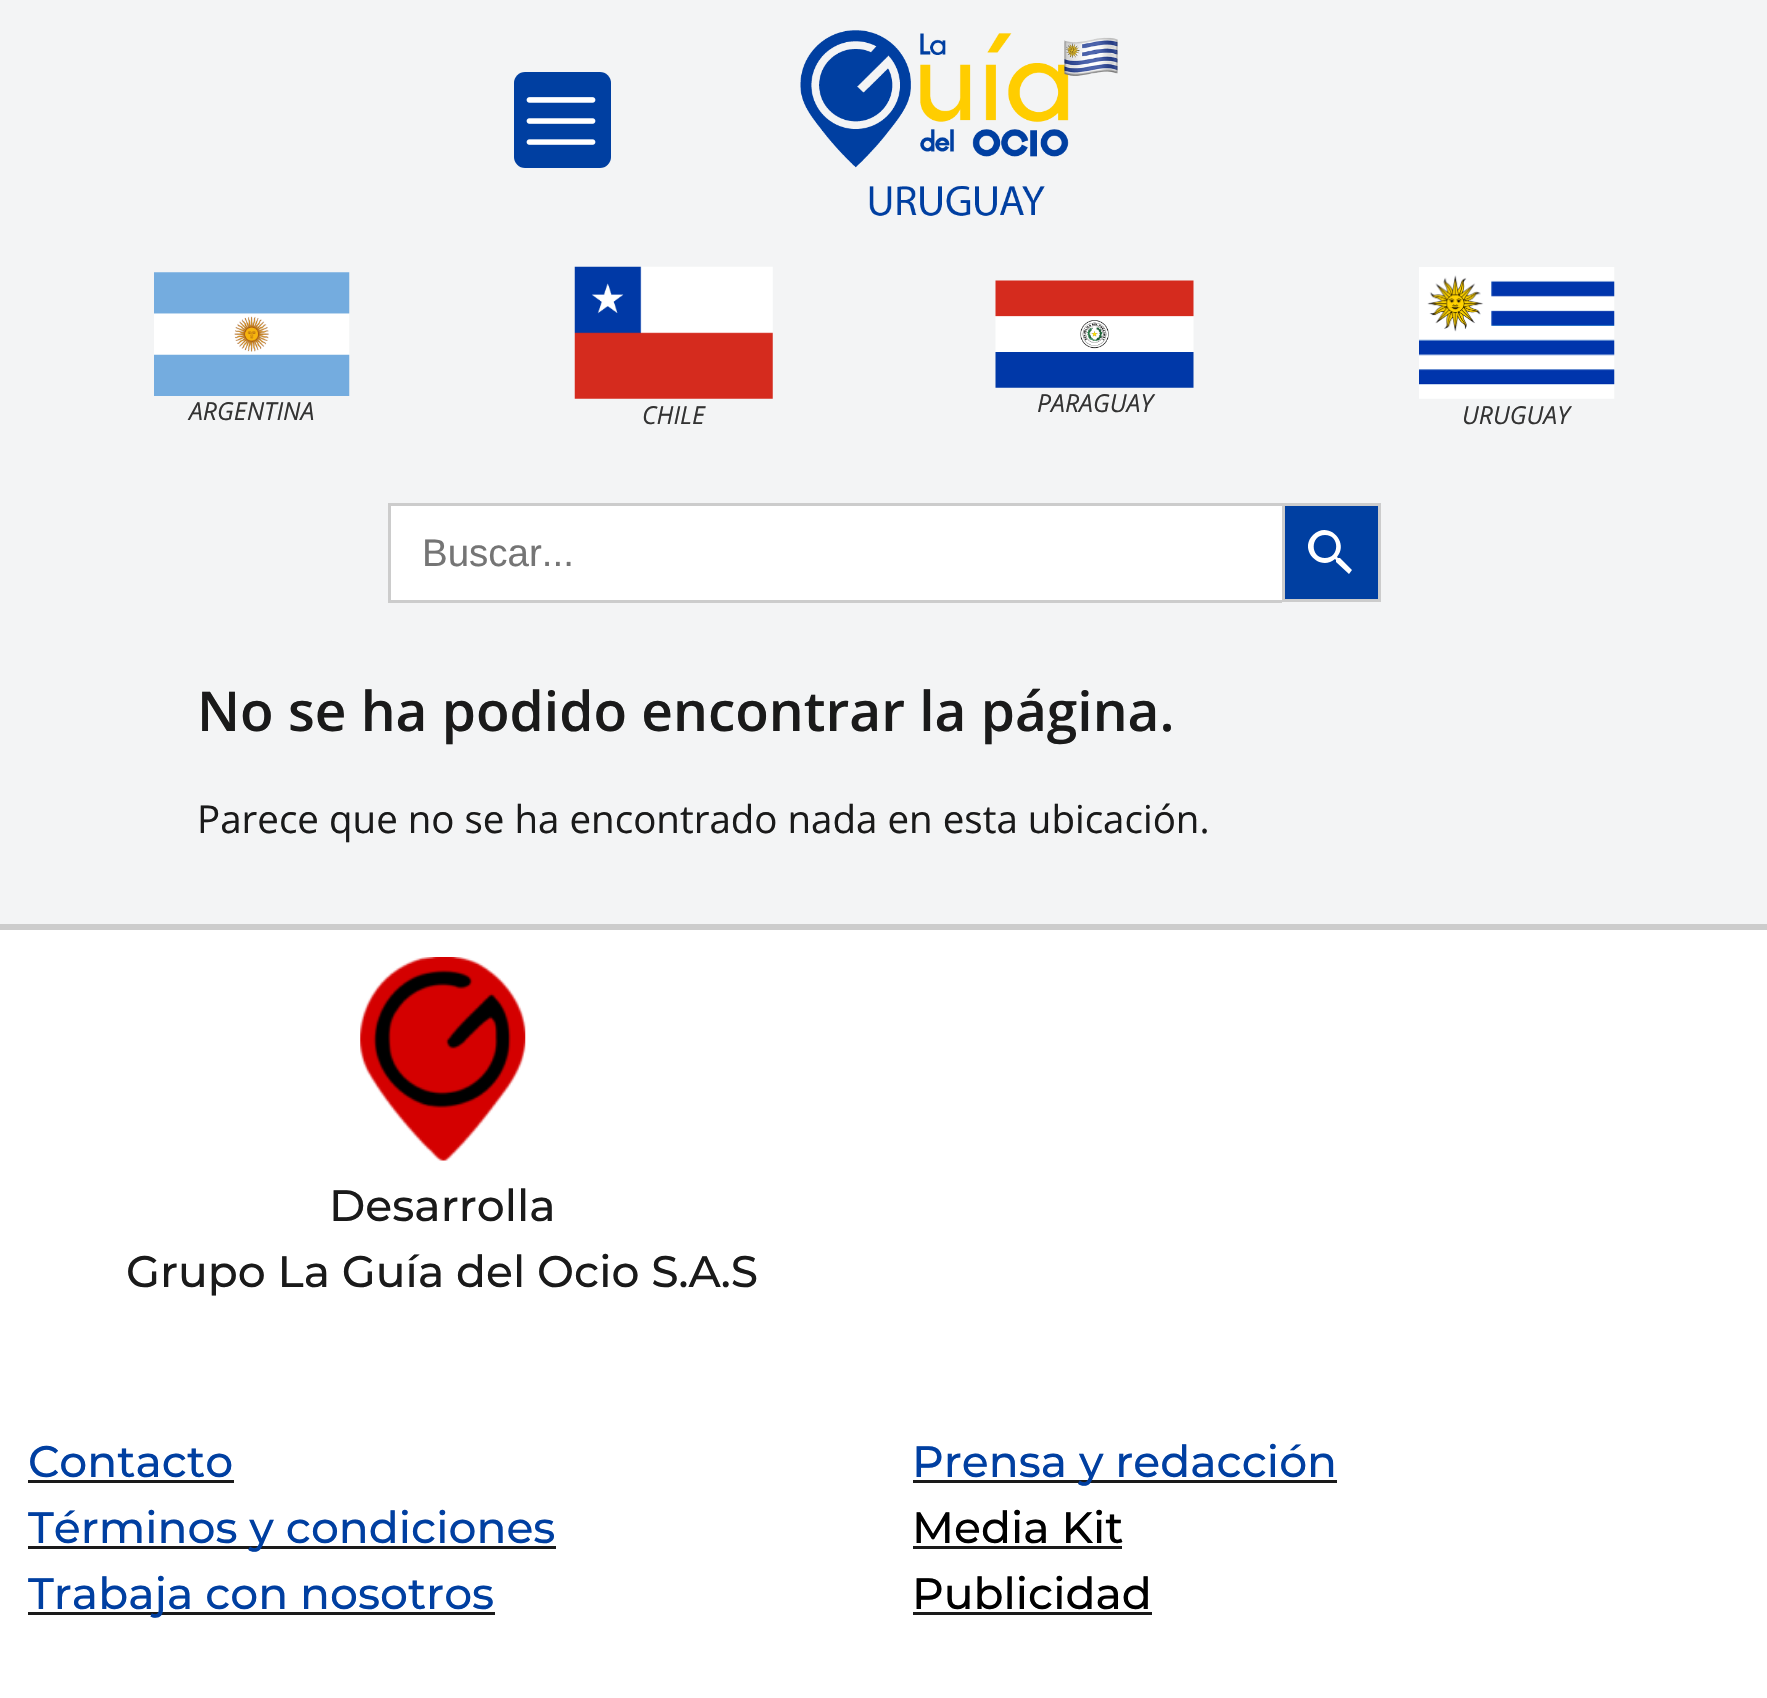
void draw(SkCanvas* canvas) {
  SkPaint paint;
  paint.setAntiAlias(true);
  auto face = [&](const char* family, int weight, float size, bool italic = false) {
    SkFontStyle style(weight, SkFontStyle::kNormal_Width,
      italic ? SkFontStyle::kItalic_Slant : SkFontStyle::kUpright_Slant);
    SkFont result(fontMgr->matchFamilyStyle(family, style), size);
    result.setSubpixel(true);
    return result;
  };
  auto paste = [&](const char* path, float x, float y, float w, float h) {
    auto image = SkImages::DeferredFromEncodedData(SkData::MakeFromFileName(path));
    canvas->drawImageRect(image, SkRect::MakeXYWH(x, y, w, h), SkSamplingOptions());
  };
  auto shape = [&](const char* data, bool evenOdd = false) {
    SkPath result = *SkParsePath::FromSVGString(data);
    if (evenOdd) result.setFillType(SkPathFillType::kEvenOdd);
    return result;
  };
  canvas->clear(0xfff3f4f5);
  paint.setColor(0xff003fa1);
  canvas->drawRoundRect(SkRect::MakeXYWH(514, 72, 97, 96), 11, 11, paint);
  paste("img/1.png", 526, 97, 70, 48);
  paste("img/2.png", 800, 30, 318, 186);
  paste("img/3.png", 154, 272, 196, 124);
  paste("img/4.png", 574, 266, 199, 133);
  paste("img/5.png", 995, 280, 199, 108);
  paste("img/6.png", 1419, 267, 196, 132);
  {
    const struct { float x, y, w, h; SkColor color; } items[] = {
      {391, 506, 891, 94, 0xffffffff},
      {388, 503, 894, 3, 0xffcccccc},
      {388, 600, 894, 3, 0xffcccccc},
      {388, 503, 3, 99, 0xffcccccc},
    };
    for (auto [x, y, w, h, color] : items) {
      paint.setColor(color);
      canvas->drawRect(SkRect::MakeXYWH(x, y, w, h), paint);
    }
  }
  paint.setColor(0xff003fa1);
  canvas->drawRect(SkRect::MakeXYWH(1283.5f, 504.5f, 96, 96), paint);
  paint.setStroke(true);
  paint.setStrokeWidth(3);
  paint.setColor(0xffcccccc);
  canvas->drawRect(SkRect::MakeXYWH(1283.5f, 504.5f, 96, 96), paint);
  paint.setStroke(false);
  paint.setColor(0xffffffff);
  canvas->drawPath(shape("M1340 558H1338L1337 557C1350 542 1328 520 1313 535C1298 550 1320 572 1335 559L1336 560V562L1349 574L1352 570ZM1325 558C1310 558 1310 535 1325 535C1340 535 1340 558 1325 558Z"), paint);
  canvas->drawRect(SkRect::MakeXYWH(0, 930, 1767, 768), paint);
  paint.setColor(0xffcccccc);
  canvas->drawRect(SkRect::MakeXYWH(0, 924, 1767, 6), paint);
  paste("img/7.png", 360, 957, 166, 204);
  {
    const struct { float x, y, w, h; SkColor color; } items[] = {
      {28, 1480, 206, 3, 0xff1a1a1a},
      {28, 1546, 528, 3, 0xff1a1a1a},
      {28, 1612, 467, 3, 0xff1a1a1a},
      {913, 1480, 424, 3, 0xff1a1a1a},
      {913, 1546, 209, 3, 0xff1a1a1a},
      {913, 1612, 239, 3, 0xff1a1a1a},
    };
    for (auto [x, y, w, h, color] : items) {
      paint.setColor(color);
      canvas->drawRect(SkRect::MakeXYWH(x, y, w, h), paint);
    }
  }
  auto f0 = face("Open Sans", 400, 24.75f, true);
  paint.setColor(0xff333333);
  {
    const struct { const char* s; float x, y; } items[] = {
      {"ARGENTINA", 189, 420},
      {"CHILE", 642, 424},
      {"PARAGUAY", 1037, 412},
      {"URUGUAY", 1462, 424},
    };
    for (auto [s, x, y] : items) {
      canvas->drawString(s, x, y, f0, paint);
    }
  }
  auto f1 = face("Liberation Sans", 400, 38.5f);
  paint.setColor(0xff757575);
  canvas->drawString("Buscar...", 422, 566, f1, paint);
  auto f2 = face("Open Sans", 600, 55);
  paint.setColor(0xff1a1a1a);
  canvas->drawString("No se ha podido encontrar la página.", 197, 731, f2, paint);
  auto f3 = face("Open Sans", 400, 38.5f);
  canvas->drawString("Parece que no se ha encontrado nada en esta ubicación.", 197, 833, f3, paint);
  auto f4 = face("Montserrat", 500, 44);
  canvas->drawString("Desarrolla", 329, 1221, f4, paint);
  canvas->drawString("Grupo La Guía del Ocio S.A.S", 126, 1287, f4, paint);
  paint.setColor(0xff003fa1);
  {
    const struct { const char* s; float x, y; } items[] = {
      {"Contacto", 28, 1477},
      {"Términos y condiciones", 28, 1543},
      {"Trabaja con nosotros", 28, 1609},
      {"Prensa y redacción", 912, 1477},
    };
    for (auto [s, x, y] : items) {
      canvas->drawString(s, x, y, f4, paint);
    }
  }
  paint.setColor(0xff000000);
  canvas->drawString("Media Kit", 912, 1543, f4, paint);
  canvas->drawString("Publicidad", 912, 1609, f4, paint);
}
